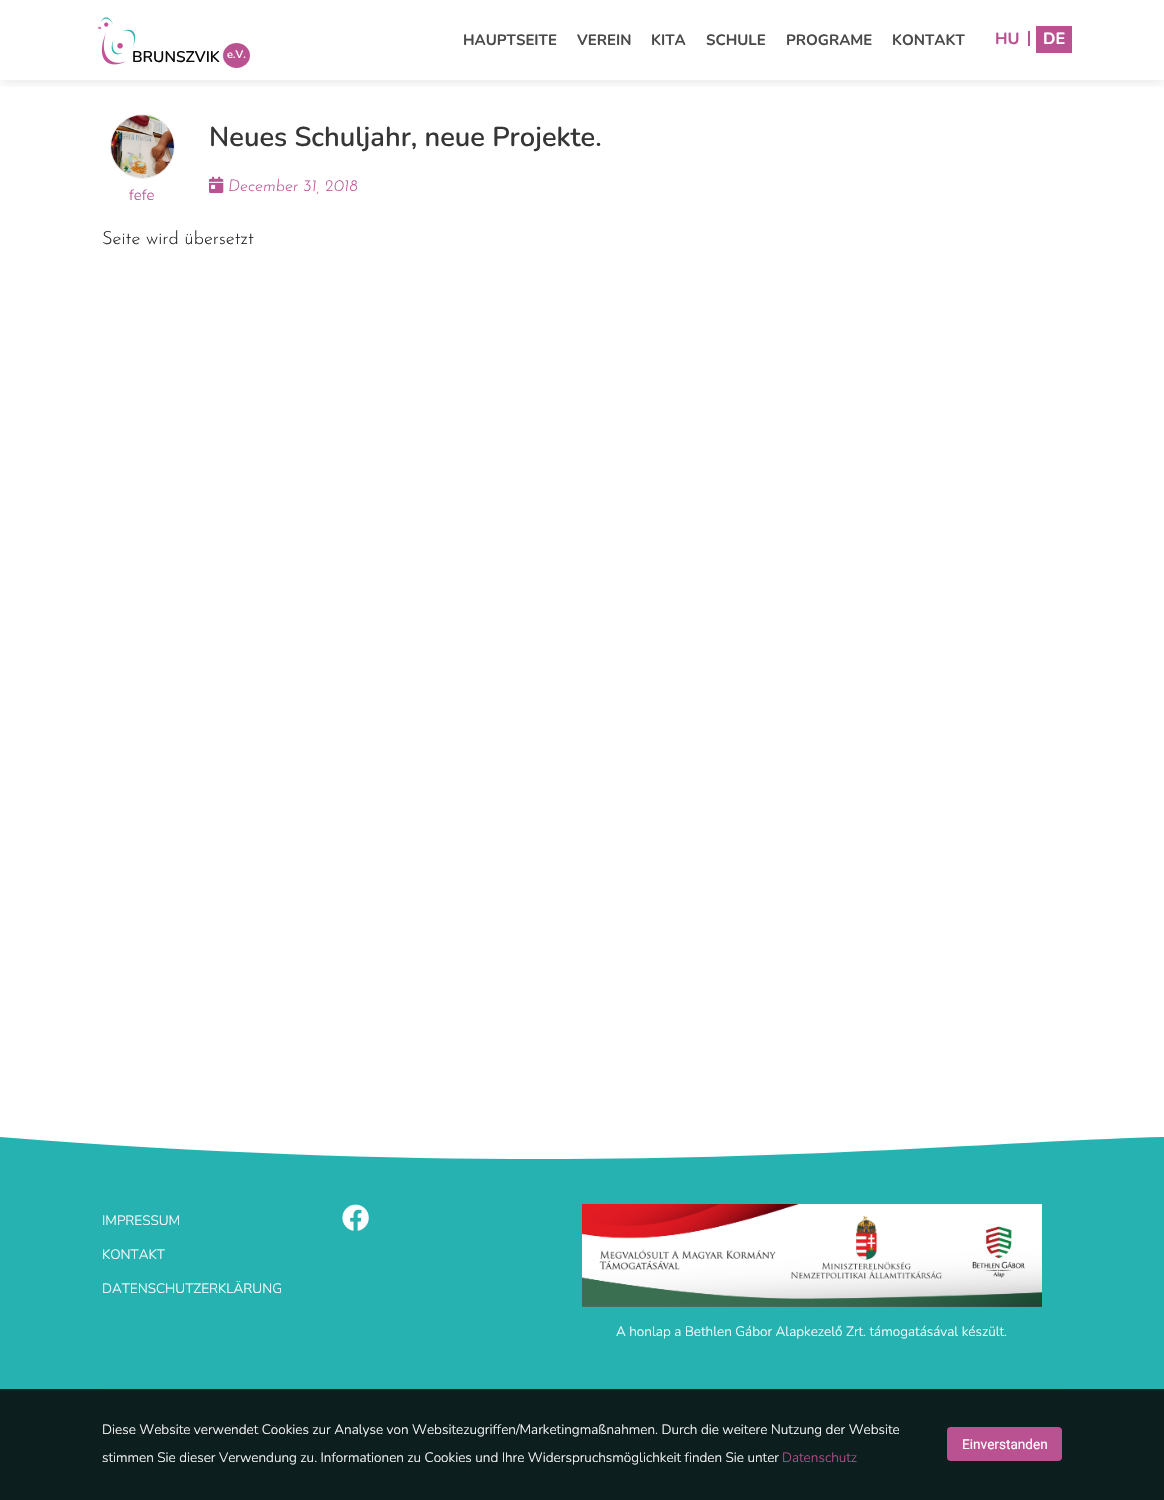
void draw(SkCanvas* canvas) {
  SkPaint paint;
  paint.setAntiAlias(true);
  auto face = [&](const char* family, int weight, float size, bool italic = false) {
    SkFontStyle style(weight, SkFontStyle::kNormal_Width,
      italic ? SkFontStyle::kItalic_Slant : SkFontStyle::kUpright_Slant);
    SkFont result(fontMgr->matchFamilyStyle(family, style), size);
    result.setSubpixel(true);
    return result;
  };
  auto paste = [&](const char* path, float x, float y, float w, float h) {
    auto image = SkImages::DeferredFromEncodedData(SkData::MakeFromFileName(path));
    canvas->drawImageRect(image, SkRect::MakeXYWH(x, y, w, h), SkSamplingOptions());
  };
  auto shape = [&](const char* data, bool evenOdd = false) {
    SkPath result = *SkParsePath::FromSVGString(data);
    if (evenOdd) result.setFillType(SkPathFillType::kEvenOdd);
    return result;
  };
  canvas->clear(0xffffffff);
  canvas->save();
  canvas->clipRect(SkRect::MakeXYWH(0, 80, 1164, 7));
  paint.setColor(0x1a0a0a0a);
  paint.setMaskFilter(SkMaskFilter::MakeBlur(kNormal_SkBlurStyle, 6));
  canvas->drawRect(SkRect::MakeXYWH(0, 2, 1164, 80), paint);
  paint.setMaskFilter(nullptr);
  canvas->restore();
  paint.setColor(0xffba5291);
  canvas->drawRect(SkRect::MakeXYWH(1028, 31, 2, 15), paint);
  canvas->drawRect(SkRect::MakeXYWH(1036, 26, 36, 27), paint);
  paste("img/1.png", 97, 17, 39, 48);
  canvas->drawOval(SkRect::MakeXYWH(223, 43, 27, 25), paint);
  paint.setStroke(true);
  paint.setStrokeWidth(1);
  paint.setColor(0xffededed);
  canvas->drawCircle(142.5f, 146.5f, 32, paint);
  paste("img/2.png", 111, 115, 63, 63);
  paste("img/3.png", 209, 176, 15, 18);
  paint.setStroke(false);
  paint.setColor(0xff26b2b1);
  canvas->drawPath(shape("M0 1137C592 1184 945 1142 1164 1137V1204H0Z"), paint);
  canvas->drawRect(SkRect::MakeXYWH(0, 1204, 1164, 185), paint);
  paint.setColor(0xff0d1e1e);
  canvas->drawRect(SkRect::MakeXYWH(0, 1389, 1164, 111), paint);
  paste("img/4.png", 342, 1204, 27, 27);
  paste("img/5.png", 582, 1204, 460, 103);
  paint.setColor(0xff172221);
  canvas->drawRect(SkRect::MakeXYWH(102, 1389, 960, 1), paint);
  paint.setColor(0xffba5291);
  canvas->drawRoundRect(SkRect::MakeXYWH(947, 1427, 115, 34), 4, 4, paint);
  auto f0 = face("Nunito", 700, 15);
  paint.setColor(0xff4a4a4a);
  {
    const struct { const char* s; float x, y; } items[] = {
      {"HAUPTSEITE", 463, 45},
      {"VEREIN", 577, 45},
      {"KITA", 651, 45},
      {"SCHULE", 706, 45},
      {"PROGRAME", 786, 45},
      {"KONTAKT", 892, 45},
    };
    for (auto [s, x, y] : items) {
      canvas->drawString(s, x, y, f0, paint);
    }
  }
  auto f1 = face("Nunito", 700, 16.25f);
  paint.setColor(0xffba5291);
  canvas->drawString("HU", 995, 44, f1, paint);
  paint.setColor(0xffffffff);
  canvas->drawString("DE", 1043, 44, f1, paint);
  auto f2 = face("Nunito", 600, 15.5f);
  paint.setColor(0xff0a0a0a);
  canvas->drawString("BRUNSZVIK", 132, 62, f2, paint);
  auto f3 = face("Nunito", 600, 11);
  paint.setColor(0xffffffff);
  canvas->drawString("e.V.", 227, 58, f3, paint);
  auto f4 = face("Nunito", 300, 15);
  paint.setColor(0xffba5291);
  canvas->drawString("fefe", 129, 200, f4, paint);
  auto f5 = face("Nunito", 600, 27.25f);
  paint.setColor(0xff363636);
  canvas->drawString("Neues Schuljahr, neue Projekte.", 209, 146, f5, paint);
  auto f6 = face("Josefin Sans", 300, 16.25f, true);
  paint.setColor(0xffba5291);
  canvas->drawString("December 31, 2018", 228, 191, f6, paint);
  auto f7 = face("Josefin Sans", 300, 18.25f);
  paint.setColor(0xff1e2125);
  canvas->drawString("Seite wird übersetzt", 102, 244, f7, paint);
  auto f8 = face("Nunito", 300, 13.6f);
  paint.setColor(0xffffffff);
  {
    const struct { const char* s; float x, y; } items[] = {
      {"IMPRESSUM", 102, 1225},
      {"KONTAKT", 102, 1259},
      {"DATENSCHUTZERKLÄRUNG", 102, 1293},
      {"A honlap a Bethlen Gábor Alapkezelő Zrt. támogatásával készült.", 616, 1336},
    };
    for (auto [s, x, y] : items) {
      canvas->drawString(s, x, y, f8, paint);
    }
  }
  auto f9 = face("Josefin Sans", 300, 12.25f);
  paint.setColor(0xff272727);
  canvas->drawString("Copyright © 2018-2026 BRUNSZVIK e.V.", 102, 1434, f9, paint);
  paint.setColor(0xffffffff);
  canvas->drawString("Diese Website verwendet Cookies zur Analyse von Websitezugriffen/Marketingmaßnahmen. Durch die weitere Nutzung der Website", 102, 1434, f8, paint);
  canvas->drawString("stimmen Sie dieser Verwendung zu. Informationen zu Cookies und Ihre Widerspruchsmöglichkeit finden Sie unter", 102, 1462, f8, paint);
  paint.setColor(0xffba5291);
  canvas->drawString("Datenschutz", 782, 1462, f8, paint);
  auto f10 = face("Roboto", 400, 13.6f);
  paint.setColor(0xffffffff);
  canvas->drawString("Einverstanden", 962, 1449, f10, paint);
}
